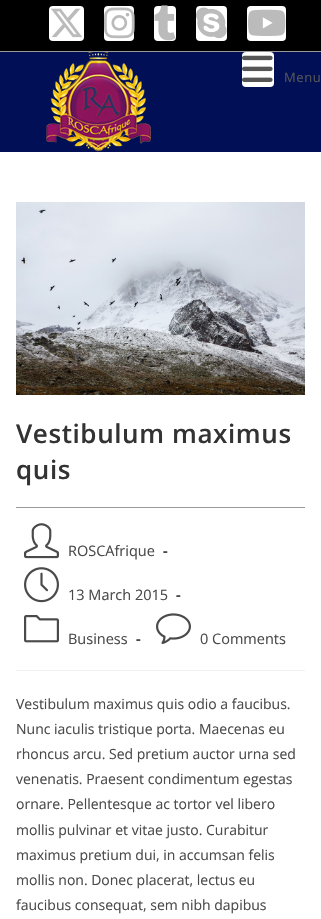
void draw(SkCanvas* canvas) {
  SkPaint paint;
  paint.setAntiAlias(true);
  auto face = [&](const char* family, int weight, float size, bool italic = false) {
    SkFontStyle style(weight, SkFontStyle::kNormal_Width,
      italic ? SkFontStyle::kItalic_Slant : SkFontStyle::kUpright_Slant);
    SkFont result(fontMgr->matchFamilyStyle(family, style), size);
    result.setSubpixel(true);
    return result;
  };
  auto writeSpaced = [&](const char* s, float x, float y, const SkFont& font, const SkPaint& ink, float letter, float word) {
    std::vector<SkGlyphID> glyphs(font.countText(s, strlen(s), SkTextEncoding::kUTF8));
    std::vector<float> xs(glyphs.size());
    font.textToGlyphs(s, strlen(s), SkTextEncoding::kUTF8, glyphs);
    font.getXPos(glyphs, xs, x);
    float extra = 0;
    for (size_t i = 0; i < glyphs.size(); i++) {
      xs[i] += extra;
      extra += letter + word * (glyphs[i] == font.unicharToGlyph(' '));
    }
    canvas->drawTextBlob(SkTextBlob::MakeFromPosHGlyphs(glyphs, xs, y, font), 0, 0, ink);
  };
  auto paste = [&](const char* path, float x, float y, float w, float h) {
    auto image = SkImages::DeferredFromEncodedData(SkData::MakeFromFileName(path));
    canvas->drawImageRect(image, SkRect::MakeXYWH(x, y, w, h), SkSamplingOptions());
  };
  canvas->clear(0xffffffff);
  paint.setColor(0xff000000);
  canvas->drawRect(SkRect::MakeXYWH(0, 0, 321, 51), paint);
  paint.setColor(0xff999999);
  canvas->drawRect(SkRect::MakeXYWH(0, 51, 321, 1), paint);
  paint.setColor(0xffffffff);
  canvas->drawRoundRect(SkRect::MakeXYWH(49, 6, 35, 35), 4, 4, paint);
  paste("img/1.png", 51, 8, 31, 30);
  canvas->drawRoundRect(SkRect::MakeXYWH(104, 6, 30, 35), 4, 4, paint);
  paste("img/2.png", 104, 7, 31, 32);
  canvas->drawRoundRect(SkRect::MakeXYWH(154, 6, 22, 35), 4, 4, paint);
  paste("img/3.png", 154, 5, 22, 36);
  canvas->drawRoundRect(SkRect::MakeXYWH(196, 6, 31, 35), 4, 4, paint);
  paste("img/4.png", 196, 7, 31, 32);
  canvas->drawRoundRect(SkRect::MakeXYWH(247, 6, 39, 35), 4, 4, paint);
  paste("img/5.png", 248, 9, 38, 27);
  paint.setColor(0xff000f56);
  canvas->drawRect(SkRect::MakeXYWH(0, 52, 321, 100), paint);
  paste("img/6.png", 46, 52, 105, 100);
  paint.setColor(0xffffffff);
  canvas->drawRoundRect(SkRect::MakeXYWH(242, 52, 32, 35), 4, 4, paint);
  paste("img/7.png", 242, 55, 31, 27);
  paste("img/8.png", 16, 202, 289, 193);
  paint.setColor(0xff999999);
  canvas->drawRect(SkRect::MakeXYWH(16, 507, 289, 1), paint);
  paint.setColor(0xfff1f1f1);
  canvas->drawRect(SkRect::MakeXYWH(16, 670, 289, 1), paint);
  paste("img/9.png", 24, 523, 35, 36);
  paste("img/10.png", 24, 567, 35, 36);
  paste("img/11.png", 24, 615, 35, 28);
  paste("img/12.png", 156, 613, 35, 31);
  auto f0 = face("Open Sans", 400, 13);
  paint.setColor(0xff555555);
  writeSpaced("Menu", 284, 82, f0, paint, 0.6f, 0);
  auto f1 = face("Open Sans", 600, 26);
  paint.setColor(0xff333333);
  writeSpaced("Vestibulum maximus", 16, 443, f1, paint, 0.6f, 0);
  writeSpaced("quis", 16, 479, f1, paint, 0.6f, 0);
  auto f2 = face("Open Sans", 400, 14.5f);
  paint.setColor(0xff4a4a4a);
  canvas->drawString("ROSCAfrique", 68, 556, f2, paint);
  auto f3 = face("Open Sans", 700, 14.5f);
  canvas->drawString("-", 163, 556, f3, paint);
  canvas->drawString("13 March 2015", 68, 600, f2, paint);
  canvas->drawString("-", 176, 600, f3, paint);
  canvas->drawString("Business", 68, 644, f2, paint);
  canvas->drawString("-", 136, 644, f3, paint);
  canvas->drawString("0 Comments", 200, 644, f2, paint);
  auto f4 = face("Open Sans", 400, 14);
  {
    const struct { const char* s; float x, y; } items[] = {
      {"Vestibulum maximus quis odio a faucibus.", 16, 709},
      {"Nunc iaculis tristique porta. Maecenas eu", 16, 734},
      {"rhoncus arcu. Sed pretium auctor urna sed", 16, 759},
      {"venenatis. Praesent condimentum egestas", 16, 784},
      {"ornare. Pellentesque ac tortor vel libero", 16, 809},
      {"mollis pulvinar et vitae justo. Curabitur", 16, 835},
      {"maximus pretium dui, in accumsan felis", 16, 860},
      {"mollis non. Donec placerat, lectus eu", 16, 885},
      {"faucibus consequat, sem nibh dapibus", 16, 910},
    };
    for (auto [s, x, y] : items) {
      canvas->drawString(s, x, y, f4, paint);
    }
  }
}
